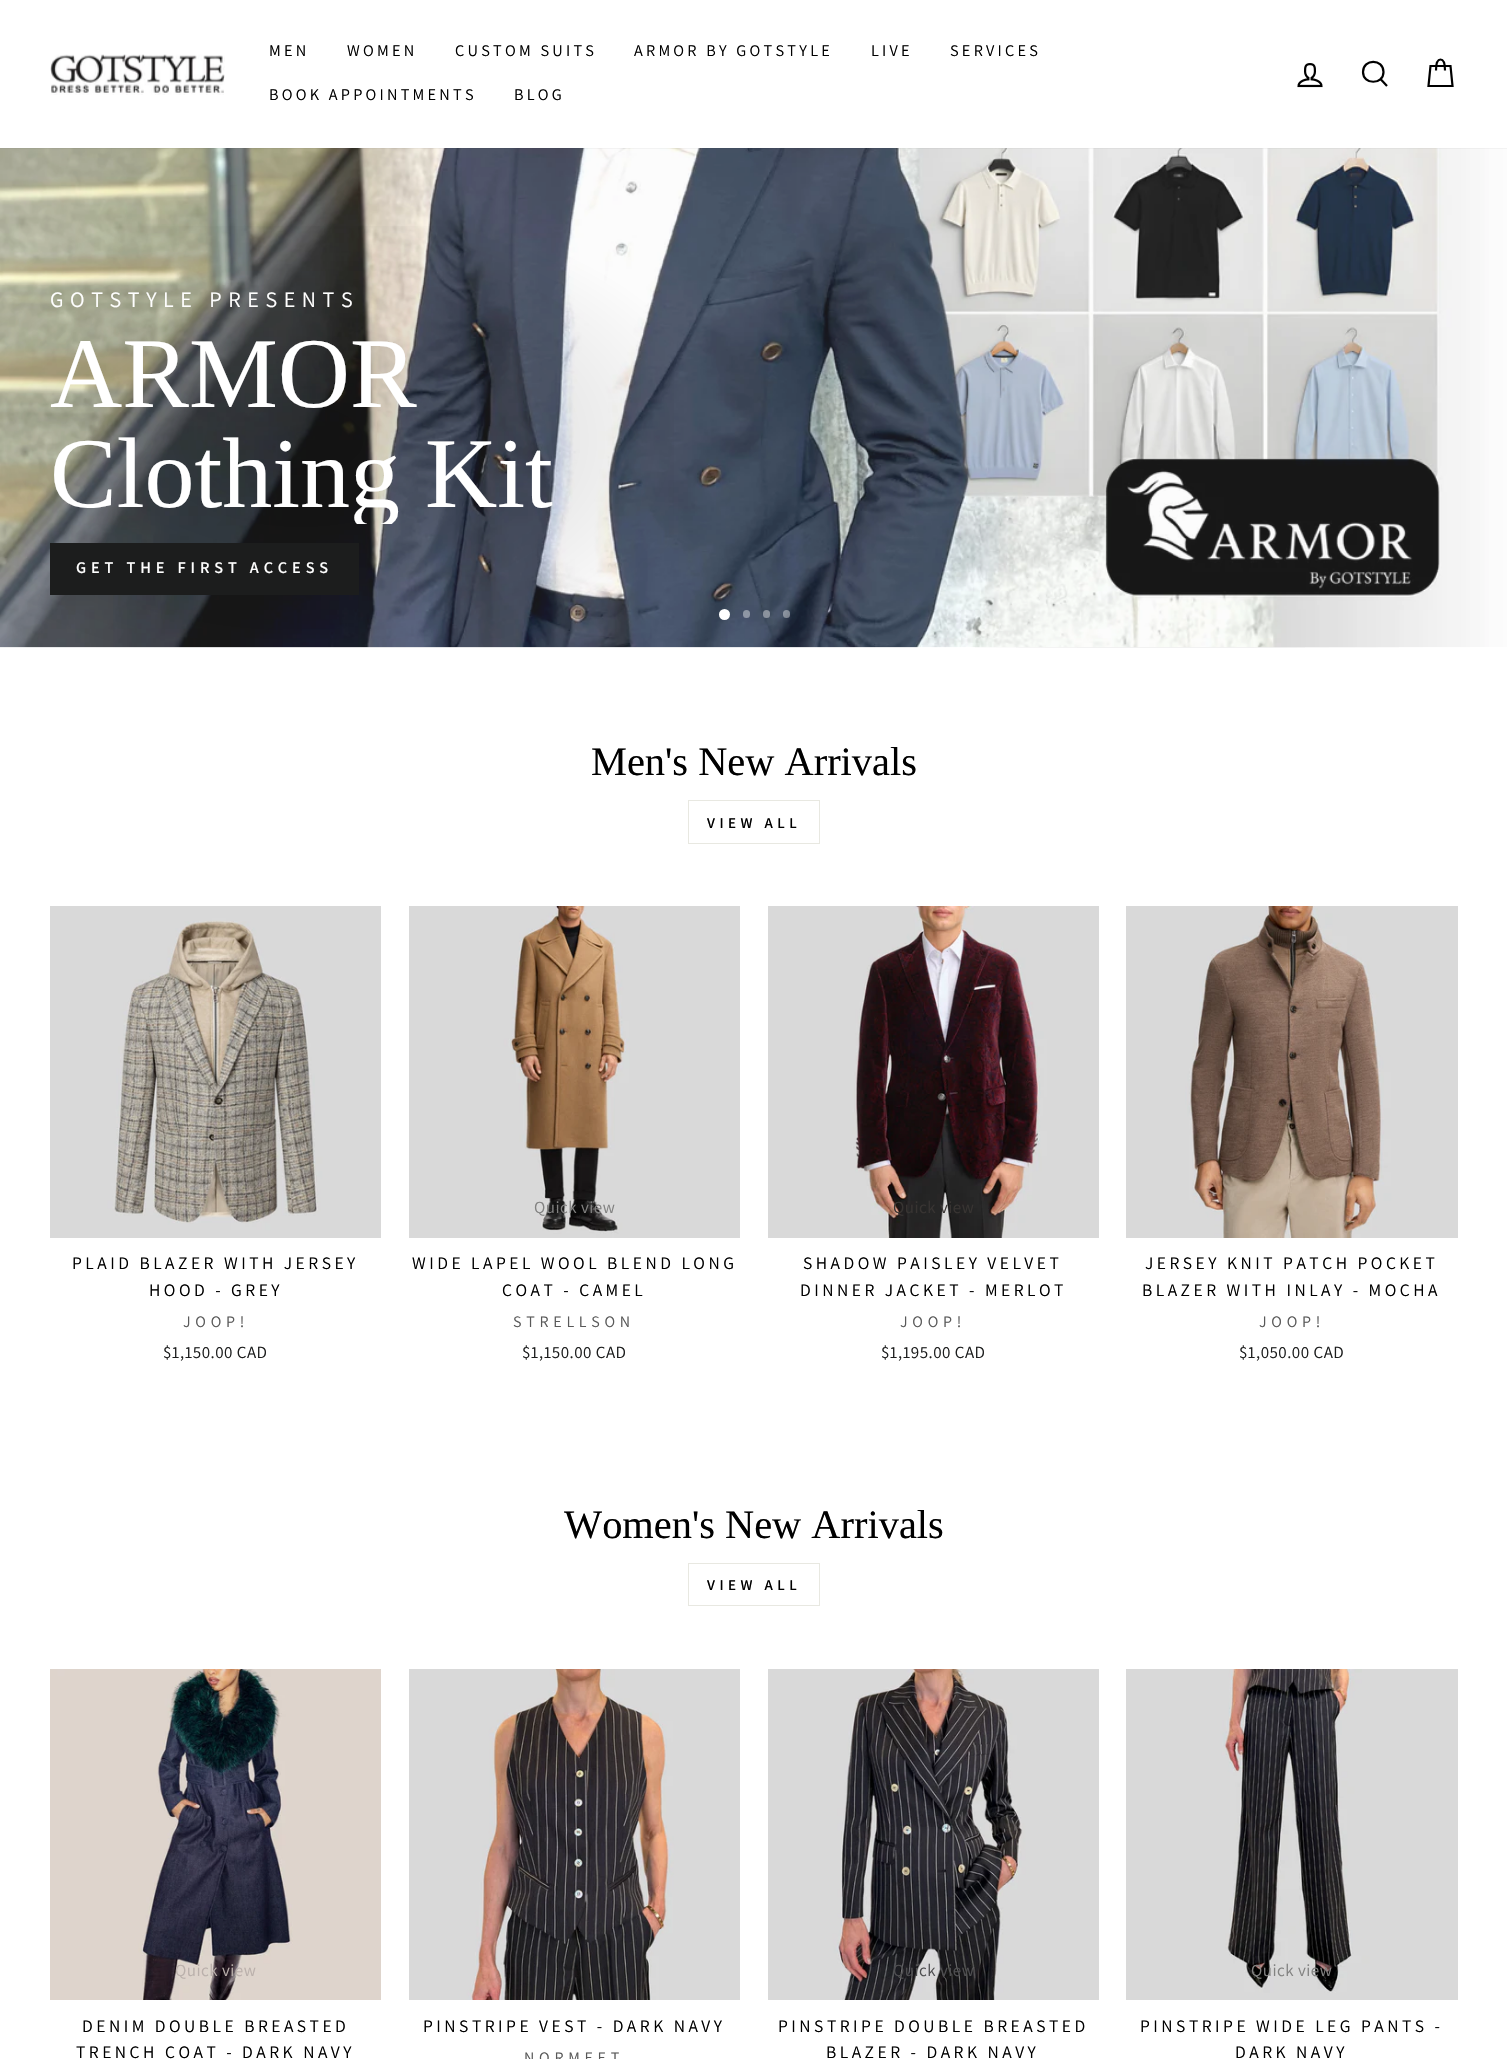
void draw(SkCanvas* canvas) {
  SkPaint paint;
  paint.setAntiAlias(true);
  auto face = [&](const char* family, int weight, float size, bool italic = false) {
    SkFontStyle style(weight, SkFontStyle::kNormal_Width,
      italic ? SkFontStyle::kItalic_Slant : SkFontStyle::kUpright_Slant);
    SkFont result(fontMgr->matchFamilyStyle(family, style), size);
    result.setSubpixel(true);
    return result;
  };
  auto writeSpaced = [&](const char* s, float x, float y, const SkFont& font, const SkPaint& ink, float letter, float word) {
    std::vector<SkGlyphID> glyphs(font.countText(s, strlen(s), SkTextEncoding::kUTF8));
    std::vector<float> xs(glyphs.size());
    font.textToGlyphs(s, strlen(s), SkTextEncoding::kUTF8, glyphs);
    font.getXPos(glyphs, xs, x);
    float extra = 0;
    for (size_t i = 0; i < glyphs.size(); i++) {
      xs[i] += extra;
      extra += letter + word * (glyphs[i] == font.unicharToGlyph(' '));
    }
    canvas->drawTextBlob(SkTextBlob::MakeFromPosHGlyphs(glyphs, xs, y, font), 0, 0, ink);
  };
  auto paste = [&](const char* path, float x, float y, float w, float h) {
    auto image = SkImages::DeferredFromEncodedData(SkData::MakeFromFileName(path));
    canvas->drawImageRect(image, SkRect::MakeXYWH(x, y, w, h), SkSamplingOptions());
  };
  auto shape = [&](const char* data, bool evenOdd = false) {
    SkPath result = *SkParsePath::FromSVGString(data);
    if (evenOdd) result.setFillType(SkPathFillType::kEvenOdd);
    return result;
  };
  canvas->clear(0xffffffff);
  {
    const SkColor colors[] = {0xffd0d0d0, 0xfffdfdfd};
    const float stops[] = {0, 0.6f};
    SkMatrix m = SkMatrix::Translate(1187, 440).preScale(736, 400);
    paint.setShader(SkGradientShader::MakeRadial({0, 0}, 1, colors, stops, 2, SkTileMode::kClamp, 0, &m));
    paint.setAlpha(255);
  }
  canvas->drawRect(SkRect::MakeXYWH(975, 647, 424, 1), paint);
  {
    const SkColor colors[] = {0x33171717, 0x00171717};
    const float stops[] = {0, 0.6f};
    SkMatrix m = SkMatrix::Translate(1161, 466).preScale(773, 363);
    paint.setShader(SkGradientShader::MakeRadial({0, 0}, 1, colors, stops, 2, SkTileMode::kClamp, 0, &m));
    paint.setAlpha(255);
  }
  canvas->drawRect(SkRect::MakeXYWH(1016, 647, 289, 1), paint);
  paste("img/3.png", 0, 148, 1507, 500);
  paint.setShader(nullptr);
  paint.setColor(0x33000000);
  paint.setMaskFilter(SkMaskFilter::MakeBlur(kNormal_SkBlurStyle, 0.5f));
  canvas->drawRect(SkRect::MakeXYWH(0, 0, 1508, 148), paint);
  paint.setMaskFilter(nullptr);
  paint.setColor(0xffffffff);
  canvas->drawRect(SkRect::MakeXYWH(0, 0, 1507, 148), paint);
  paste("img/1.png", 50, 54, 175, 41);
  paste("img/2.png", 1297, 63, 26, 25);
  paint.setStroke(true);
  paint.setStrokeWidth(2.2f);
  paint.setColor(0xff000000);
  canvas->drawPath(shape("M1383.5 72C1383.5 85 1363 85 1363 72C1363 58.5 1383.5 58.5 1383.5 72ZM1387 86L1380.5 79"), paint);
  canvas->drawPath(shape("M1436 70.5C1436 62 1438 59.5 1440.5 59.5C1443 59.5 1445 62 1445 70.5M1430.5 66H1450.5L1452.5 86H1428.5Z"), paint);
  paint.setStroke(false);
  {
    const SkColor colors[] = {0x33000000, 0x00000000};
    const float stops[] = {0, 0.6f};
    SkMatrix m = SkMatrix::Translate(301, 440).preScale(709, 400);
    paint.setShader(SkGradientShader::MakeRadial({0, 0}, 1, colors, stops, 2, SkTileMode::kClamp, 0, &m));
    paint.setAlpha(255);
  }
  canvas->drawRect(SkRect::MakeXYWH(0, 226, 674, 422), paint);
  paint.setShader(nullptr);
  paint.setColor(0xff1c1d1d);
  canvas->drawRect(SkRect::MakeXYWH(50, 543, 309, 52), paint);
  paint.setColor(0xffffffff);
  canvas->drawCircle(724.5f, 614.5f, 5.5f, paint);
  paint.setColor(0x66ffffff);
  canvas->drawRoundRect(SkRect::MakeXYWH(743, 610, 7, 8), 3.5f, 3.5f, paint);
  canvas->drawRoundRect(SkRect::MakeXYWH(763, 610, 7, 8), 3.5f, 3.5f, paint);
  canvas->drawRoundRect(SkRect::MakeXYWH(783, 610, 7, 8), 3.5f, 3.5f, paint);
  paint.setStroke(true);
  paint.setStrokeWidth(1);
  paint.setColor(0xffe8e8e1);
  canvas->drawRect(SkRect::MakeXYWH(688.5f, 800.5f, 131, 43), paint);
  paste("img/4.png", 50, 906, 331, 332);
  paste("img/5.png", 409, 906, 331, 332);
  paste("img/6.png", 768, 906, 331, 332);
  paste("img/7.png", 1126, 906, 332, 332);
  canvas->drawRect(SkRect::MakeXYWH(688.5f, 1563.5f, 131, 42), paint);
  paste("img/8.png", 50, 1669, 331, 331);
  paste("img/9.png", 409, 1669, 331, 331);
  paste("img/10.png", 768, 1669, 331, 331);
  paste("img/11.png", 1126, 1669, 332, 331);
  auto f0 = face("Assistant", 400, 16.25f);
  paint.setStroke(false);
  paint.setColor(0xff000000);
  {
    const struct { const char* s; float x, y; } items[] = {
      {"MEN", 269, 56},
      {"WOMEN", 347, 56},
      {"CUSTOM SUITS", 455, 56},
      {"ARMOR BY GOTSTYLE", 634, 56},
      {"LIVE", 871, 56},
      {"SERVICES", 950, 56},
      {"BOOK APPOINTMENTS", 269, 100},
      {"BLOG", 514, 100},
    };
    for (auto [s, x, y] : items) {
      writeSpaced(s, x, y, f0, paint, 3.25f, 0);
    }
  }
  auto f1 = face("Assistant", 400, 22);
  paint.setColor(0xffffffff);
  writeSpaced("GOTSTYLE PRESENTS", 50, 307, f1, paint, 6.6f, 0);
  auto f2 = face("Liberation Serif", 400, 100);
  canvas->drawString("ARMOR", 50, 407, f2, paint);
  canvas->save();
  canvas->clipRect(SkRect::MakeXYWH(50, 324, 503, 200));
  canvas->drawString("Clothing Kit", 50, 507, f2, paint);
  canvas->restore();
  auto f3 = face("Assistant", 600, 16.25f);
  writeSpaced("GET THE FIRST ACCESS", 76, 573, f3, paint, 4.9f, 0);
  auto f4 = face("Liberation Serif", 400, 40.4f);
  paint.setColor(0xff000000);
  canvas->drawString("Men's New Arrivals", 591, 775, f4, paint);
  auto f5 = face("Assistant", 600, 15);
  writeSpaced("VIEW ALL", 707, 828, f5, paint, 4.5f, 0);
  auto f6 = face("Assistant", 400, 17.5f);
  writeSpaced("PLAID BLAZER WITH JERSEY", 72, 1269, f6, paint, 3.5f, 0);
  writeSpaced("HOOD - GREY", 149, 1296, f6, paint, 3.5f, 0);
  auto f7 = face("Assistant", 400, 16);
  paint.setColor(0xff595959);
  writeSpaced("JOOP!", 183, 1327, f7, paint, 4.75f, 0);
  auto f8 = face("Assistant", 400, 17);
  paint.setColor(0xff1c1d1d);
  writeSpaced("$1,150.00 CAD", 163, 1358, f8, paint, 0.5f, 0);
  paint.setColor(0xff828281);
  writeSpaced("Quick view", 534, 1213, f8, paint, 0.5f, 0);
  paint.setColor(0xff000000);
  writeSpaced("WIDE LAPEL WOOL BLEND LONG", 412, 1269, f6, paint, 3.5f, 0);
  writeSpaced("COAT - CAMEL", 502, 1296, f6, paint, 3.5f, 0);
  paint.setColor(0xff595959);
  writeSpaced("STRELLSON", 513, 1327, f7, paint, 4.75f, 0);
  paint.setColor(0xff1c1d1d);
  writeSpaced("$1,150.00 CAD", 522, 1358, f8, paint, 0.5f, 0);
  paint.setColor(0xff383432);
  writeSpaced("Quick view", 893, 1213, f8, paint, 0.5f, 0);
  paint.setColor(0xff000000);
  writeSpaced("SHADOW PAISLEY VELVET", 803, 1269, f6, paint, 3.5f, 0);
  writeSpaced("DINNER JACKET - MERLOT", 800, 1296, f6, paint, 3.5f, 0);
  paint.setColor(0xff595959);
  writeSpaced("JOOP!", 900, 1327, f7, paint, 4.75f, 0);
  paint.setColor(0xff1c1d1d);
  writeSpaced("$1,195.00 CAD", 881, 1358, f8, paint, 0.5f, 0);
  paint.setColor(0xff000000);
  writeSpaced("JERSEY KNIT PATCH POCKET", 1145, 1269, f6, paint, 3.5f, 0);
  writeSpaced("BLAZER WITH INLAY - MOCHA", 1142, 1296, f6, paint, 3.5f, 0);
  paint.setColor(0xff595959);
  writeSpaced("JOOP!", 1259, 1327, f7, paint, 4.75f, 0);
  paint.setColor(0xff1c1d1d);
  writeSpaced("$1,050.00 CAD", 1239, 1358, f8, paint, 0.5f, 0);
  paint.setColor(0xff000000);
  canvas->drawString("Women's New Arrivals", 564, 1538, f4, paint);
  writeSpaced("VIEW ALL", 707, 1590, f5, paint, 4.5f, 0);
  paint.setColor(0xffbab0ab);
  writeSpaced("Quick view", 175, 1976, f8, paint, 0.5f, 0);
  paint.setColor(0xff000000);
  {
    const struct { const char* s; float x, y; } items[] = {
      {"DENIM DOUBLE BREASTED", 82, 2032},
      {"TRENCH COAT - DARK NAVY", 76, 2058},
      {"PINSTRIPE VEST - DARK NAVY", 423, 2032},
    };
    for (auto [s, x, y] : items) {
      writeSpaced(s, x, y, f6, paint, 3.5f, 0);
    }
  }
  paint.setColor(0xff595959);
  writeSpaced("NORMEET", 524, 2063, f7, paint, 4.75f, 0);
  paint.setColor(0xff4f4f51);
  writeSpaced("Quick view", 893, 1976, f8, paint, 0.5f, 0);
  paint.setColor(0xff000000);
  writeSpaced("PINSTRIPE DOUBLE BREASTED", 778, 2032, f6, paint, 3.5f, 0);
  writeSpaced("BLAZER - DARK NAVY", 826, 2058, f6, paint, 3.5f, 0);
  paint.setColor(0xff828281);
  writeSpaced("Quick view", 1251, 1976, f8, paint, 0.5f, 0);
  paint.setColor(0xff000000);
  writeSpaced("PINSTRIPE WIDE LEG PANTS -", 1140, 2032, f6, paint, 3.5f, 0);
  writeSpaced("DARK NAVY", 1235, 2058, f6, paint, 3.5f, 0);
}
